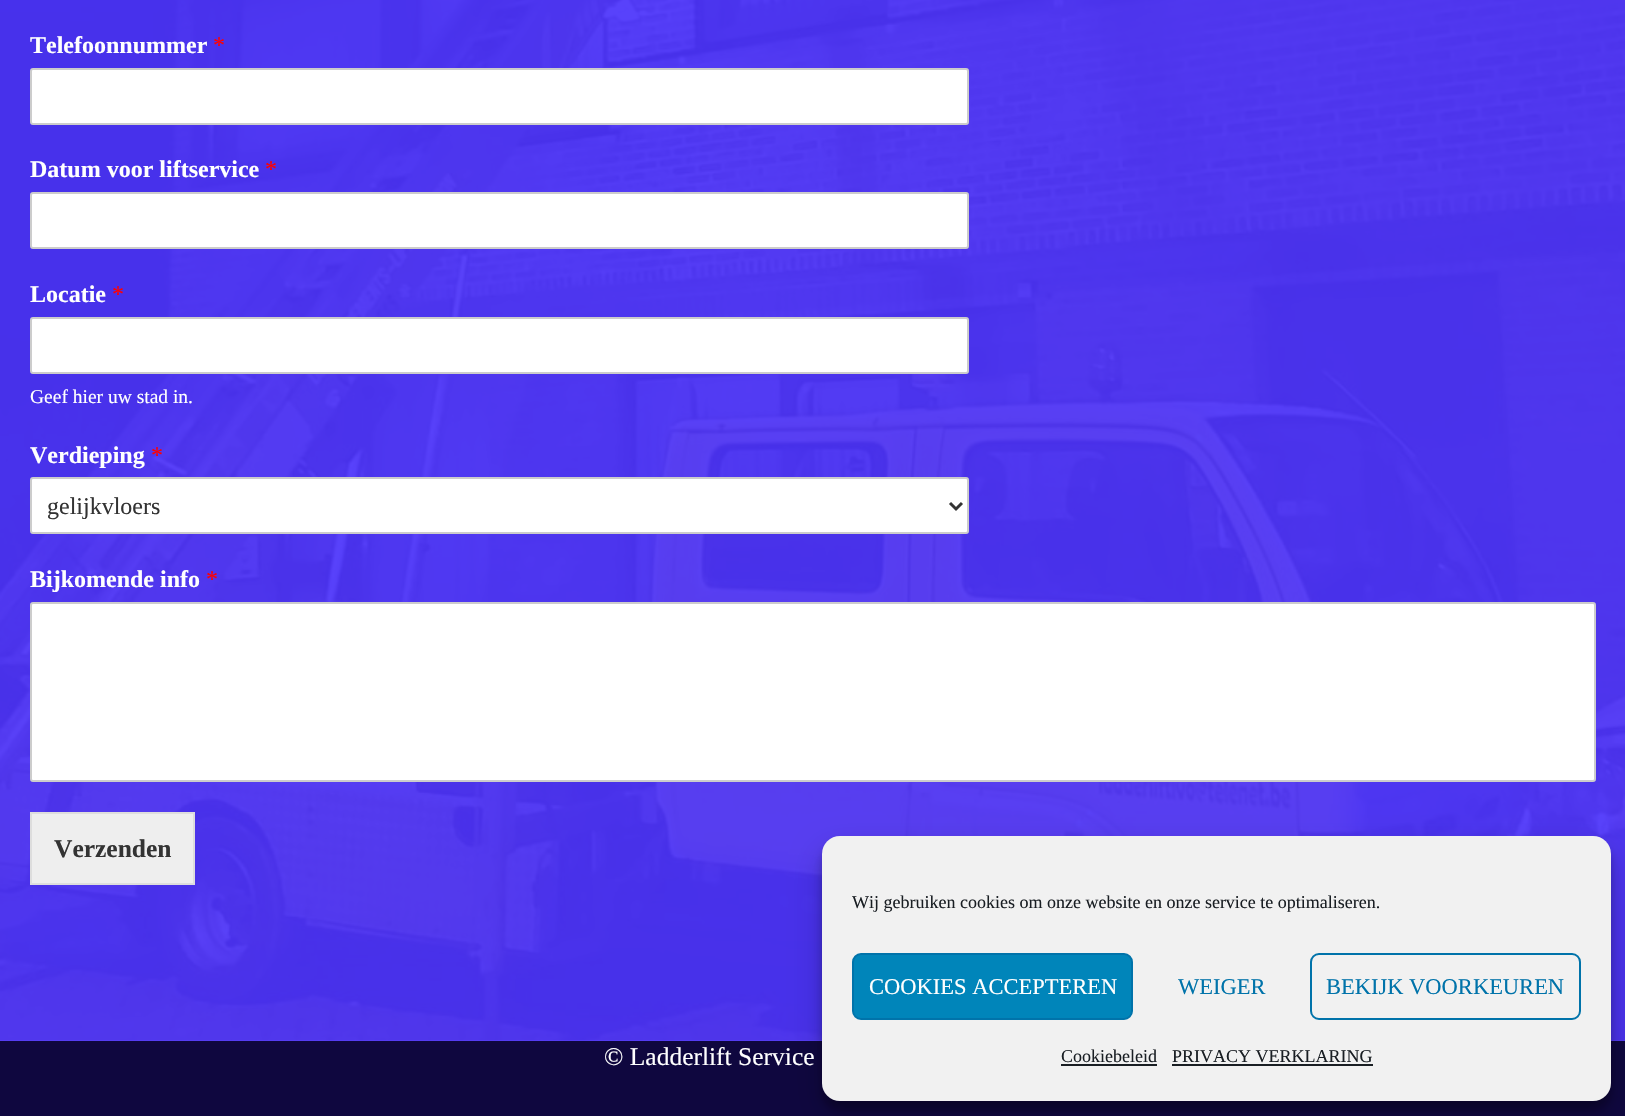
void draw(SkCanvas* canvas) {
  SkPaint paint;
  paint.setAntiAlias(true);
  auto face = [&](const char* family, int weight, float size, bool italic = false) {
    SkFontStyle style(weight, SkFontStyle::kNormal_Width,
      italic ? SkFontStyle::kItalic_Slant : SkFontStyle::kUpright_Slant);
    SkFont result(fontMgr->matchFamilyStyle(family, style), size);
    result.setSubpixel(true);
    return result;
  };
  auto paste = [&](const char* path, float x, float y, float w, float h) {
    auto image = SkImages::DeferredFromEncodedData(SkData::MakeFromFileName(path));
    canvas->drawImageRect(image, SkRect::MakeXYWH(x, y, w, h), SkSamplingOptions());
  };
  auto shape = [&](const char* data, bool evenOdd = false) {
    SkPath result = *SkParsePath::FromSVGString(data);
    if (evenOdd) result.setFillType(SkPathFillType::kEvenOdd);
    return result;
  };
  canvas->clear(0xff5942fb);
  paste("img/1.png", 0, 0, 1625, 1041);
  paint.setColor(0xffffffff);
  canvas->drawRoundRect(SkRect::MakeXYWH(31, 69, 937, 55), 2, 2, paint);
  paint.setStroke(true);
  paint.setStrokeWidth(2);
  paint.setColor(0xffcccccc);
  canvas->drawRoundRect(SkRect::MakeXYWH(31, 69, 937, 55), 2, 2, paint);
  paint.setStroke(false);
  paint.setColor(0xffffffff);
  canvas->drawRoundRect(SkRect::MakeXYWH(31, 193, 937, 55), 2, 2, paint);
  paint.setStroke(true);
  paint.setColor(0xffcccccc);
  canvas->drawRoundRect(SkRect::MakeXYWH(31, 193, 937, 55), 2, 2, paint);
  paint.setStroke(false);
  paint.setColor(0xffffffff);
  canvas->drawRoundRect(SkRect::MakeXYWH(31, 318, 937, 55), 2, 2, paint);
  paint.setStroke(true);
  paint.setColor(0xffcccccc);
  canvas->drawRoundRect(SkRect::MakeXYWH(31, 318, 937, 55), 2, 2, paint);
  paint.setStroke(false);
  paint.setColor(0xffffffff);
  canvas->drawRoundRect(SkRect::MakeXYWH(31, 478, 937, 55), 2, 2, paint);
  paint.setStroke(true);
  paint.setColor(0xffcccccc);
  canvas->drawRoundRect(SkRect::MakeXYWH(31, 478, 937, 55), 2, 2, paint);
  paint.setStrokeWidth(3);
  paint.setColor(0xff333333);
  canvas->drawPath(shape("M950 503L956 509L962 503"), paint);
  paint.setStroke(false);
  paint.setColor(0xffffffff);
  canvas->drawRoundRect(SkRect::MakeXYWH(31, 603, 1564, 178), 2, 2, paint);
  paint.setStroke(true);
  paint.setStrokeWidth(2);
  paint.setColor(0xffcccccc);
  canvas->drawRoundRect(SkRect::MakeXYWH(31, 603, 1564, 178), 2, 2, paint);
  paint.setStroke(false);
  paint.setColor(0xffeeeeee);
  canvas->drawRect(SkRect::MakeXYWH(31, 813, 163, 71), paint);
  paint.setStroke(true);
  paint.setColor(0xffdddddd);
  canvas->drawRect(SkRect::MakeXYWH(31, 813, 163, 71), paint);
  paint.setStroke(false);
  paint.setColor(0xff0f073f);
  canvas->drawRect(SkRect::MakeXYWH(0, 1041, 1625, 75), paint);
  paint.setColor(0x3b000000);
  paint.setMaskFilter(SkMaskFilter::MakeBlur(kNormal_SkBlurStyle, 4.5f));
  canvas->drawRoundRect(SkRect::MakeXYWH(822, 845, 789, 265), 18, 18, paint);
  paint.setMaskFilter(nullptr);
  paint.setColor(0x30000000);
  paint.setMaskFilter(SkMaskFilter::MakeBlur(kNormal_SkBlurStyle, 15));
  canvas->drawRoundRect(SkRect::MakeXYWH(822, 851, 789, 265), 18, 18, paint);
  paint.setMaskFilter(nullptr);
  paint.setColor(0xfff1f1f1);
  canvas->drawRoundRect(SkRect::MakeXYWH(822, 836, 789, 265), 18, 18, paint);
  paint.setColor(0xff0085ba);
  canvas->drawRoundRect(SkRect::MakeXYWH(853, 954, 279, 65), 8, 8, paint);
  paint.setStroke(true);
  paint.setColor(0xff0073aa);
  canvas->drawRoundRect(SkRect::MakeXYWH(853, 954, 279, 65), 8, 8, paint);
  canvas->drawRoundRect(SkRect::MakeXYWH(1311, 954, 269, 65), 8, 8, paint);
  paint.setStroke(false);
  paint.setColor(0xff191e23);
  canvas->drawRect(SkRect::MakeXYWH(1061, 1064, 96, 2), paint);
  canvas->drawRect(SkRect::MakeXYWH(1172, 1064, 201, 2), paint);
  auto f0 = face("Liberation Serif", 700, 24);
  paint.setColor(0xffffffff);
  canvas->drawString("Telefoonnummer", 30, 53, f0, paint);
  auto f1 = face("Liberation Serif", 400, 24);
  paint.setColor(0xffff0000);
  canvas->drawString("*", 213, 53, f1, paint);
  paint.setColor(0xffffffff);
  canvas->drawString("Datum voor liftservice", 30, 177, f0, paint);
  paint.setColor(0xffff0000);
  canvas->drawString("*", 265, 177, f1, paint);
  paint.setColor(0xffffffff);
  canvas->drawString("Locatie", 30, 302, f0, paint);
  paint.setColor(0xffff0000);
  canvas->drawString("*", 112, 302, f1, paint);
  auto f2 = face("Liberation Serif", 400, 19.5f);
  paint.setColor(0xffffffff);
  canvas->drawString("Geef hier uw stad in.", 30, 403, f2, paint);
  canvas->drawString("Verdieping", 30, 463, f0, paint);
  paint.setColor(0xffff0000);
  canvas->drawString("*", 151, 463, f1, paint);
  paint.setColor(0xff333333);
  canvas->drawString("gelijkvloers", 47, 514, f1, paint);
  paint.setColor(0xffffffff);
  canvas->drawString("Bijkomende info", 30, 587, f0, paint);
  paint.setColor(0xffff0000);
  canvas->drawString("*", 206, 587, f1, paint);
  auto f3 = face("Liberation Serif", 700, 25.5f);
  paint.setColor(0xff333333);
  canvas->drawString("Verzenden", 54, 857, f3, paint);
  auto f4 = face("Liberation Serif", 400, 25.5f);
  paint.setColor(0xffffffff);
  canvas->drawString("© Ladderlift Service", 604, 1065, f4, paint);
  auto f5 = face("Liberation Serif", 400, 18);
  paint.setColor(0xff191e23);
  canvas->drawString("Wij gebruiken cookies om onze website en onze service te optimaliseren.", 852, 908, f5, paint);
  auto f6 = face("Liberation Serif", 400, 22.5f);
  paint.setColor(0xffffffff);
  canvas->drawString("COOKIES ACCEPTEREN", 869, 994, f6, paint);
  paint.setColor(0xff0073aa);
  canvas->drawString("WEIGER", 1178, 994, f6, paint);
  canvas->drawString("BEKIJK VOORKEUREN", 1326, 994, f6, paint);
  paint.setColor(0xff191e23);
  canvas->drawString("Cookiebeleid", 1061, 1062, f5, paint);
  canvas->drawString("PRIVACY VERKLARING", 1172, 1062, f5, paint);
}
